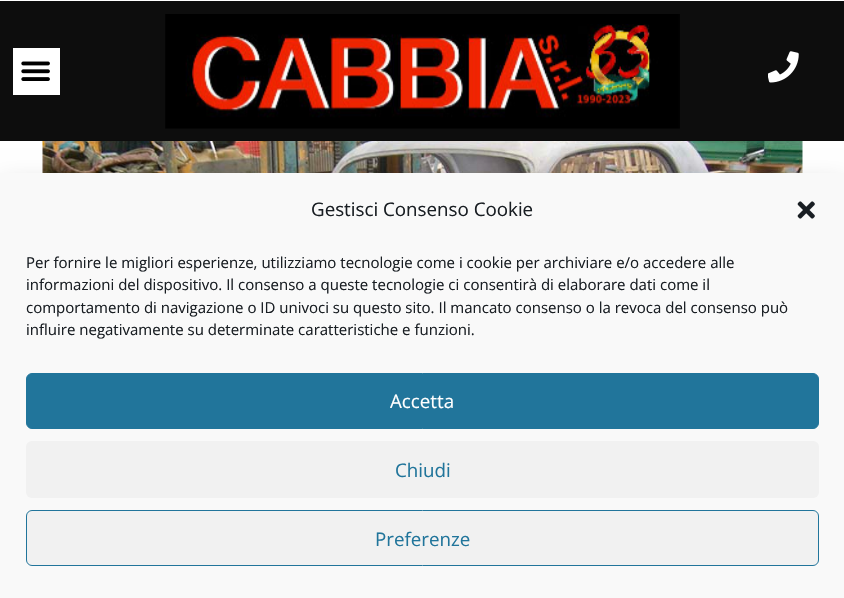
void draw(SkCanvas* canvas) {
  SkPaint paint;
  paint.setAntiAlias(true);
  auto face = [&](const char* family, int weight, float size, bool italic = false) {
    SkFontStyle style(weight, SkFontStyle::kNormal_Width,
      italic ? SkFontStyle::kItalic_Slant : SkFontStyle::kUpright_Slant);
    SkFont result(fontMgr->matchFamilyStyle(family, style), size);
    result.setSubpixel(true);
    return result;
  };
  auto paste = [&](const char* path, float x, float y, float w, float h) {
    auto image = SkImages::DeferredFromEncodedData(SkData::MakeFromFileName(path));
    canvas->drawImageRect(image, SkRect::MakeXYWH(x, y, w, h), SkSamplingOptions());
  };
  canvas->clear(0xffffffff);
  paint.setColor(0xff0d0d0d);
  canvas->drawRect(SkRect::MakeXYWH(0, 1, 844, 140), paint);
  paint.setColor(0xffffffff);
  canvas->drawRect(SkRect::MakeXYWH(13, 48, 47, 47), paint);
  paste("img/1.png", 21, 61, 29, 20);
  paste("img/2.png", 165, 14, 515, 115);
  paste("img/3.png", 768, 51, 31, 32);
  paste("img/4.png", 42, 141, 761, 32);
  paint.setColor(0x30000000);
  paint.setMaskFilter(SkMaskFilter::MakeBlur(kNormal_SkBlurStyle, 12.5f));
  canvas->drawRect(SkRect::MakeXYWH(0, 185, 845, 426), paint);
  paint.setMaskFilter(nullptr);
  paint.setColor(0xfff9f9f9);
  canvas->drawRect(SkRect::MakeXYWH(0, 173, 844, 425), paint);
  paste("img/5.png", 797, 201, 18, 18);
  paint.setColor(0xff21759b);
  canvas->drawRoundRect(SkRect::MakeXYWH(26.5f, 373.5f, 792, 55), 5.5f, 5.5f, paint);
  paint.setStroke(true);
  paint.setStrokeWidth(1);
  canvas->drawRoundRect(SkRect::MakeXYWH(26.5f, 373.5f, 792, 55), 5.5f, 5.5f, paint);
  paint.setStroke(false);
  paint.setColor(0xfff1f1f1);
  canvas->drawRoundRect(SkRect::MakeXYWH(26, 441, 793, 57), 6, 6, paint);
  canvas->drawRoundRect(SkRect::MakeXYWH(26.5f, 510.5f, 792, 55), 5.5f, 5.5f, paint);
  paint.setStroke(true);
  paint.setColor(0xff21759b);
  canvas->drawRoundRect(SkRect::MakeXYWH(26.5f, 510.5f, 792, 55), 5.5f, 5.5f, paint);
  auto f0 = face("Open Sans", 400, 18.75f);
  paint.setStroke(false);
  paint.setColor(0xff191e23);
  canvas->drawString("Gestisci Consenso Cookie", 311, 216, f0, paint);
  auto f1 = face("Open Sans", 400, 15);
  {
    const struct { const char* s; float x, y; } items[] = {
      {"Per fornire le migliori esperienze, utilizziamo tecnologie come i cookie per archiviare e/o accedere alle", 26, 268},
      {"informazioni del dispositivo. Il consenso a queste tecnologie ci consentirà di elaborare dati come il", 26, 290},
      {"comportamento di navigazione o ID univoci su questo sito. Il mancato consenso o la revoca del consenso può", 26, 313},
      {"influire negativamente su determinate caratteristiche e funzioni.", 26, 335},
    };
    for (auto [s, x, y] : items) {
      canvas->drawString(s, x, y, f1, paint);
    }
  }
  paint.setColor(0xffffffff);
  canvas->drawString("Accetta", 390, 408, f0, paint);
  paint.setColor(0xff21759b);
  canvas->drawString("Chiudi", 395, 477, f0, paint);
  canvas->drawString("Preferenze", 375, 546, f0, paint);
}
